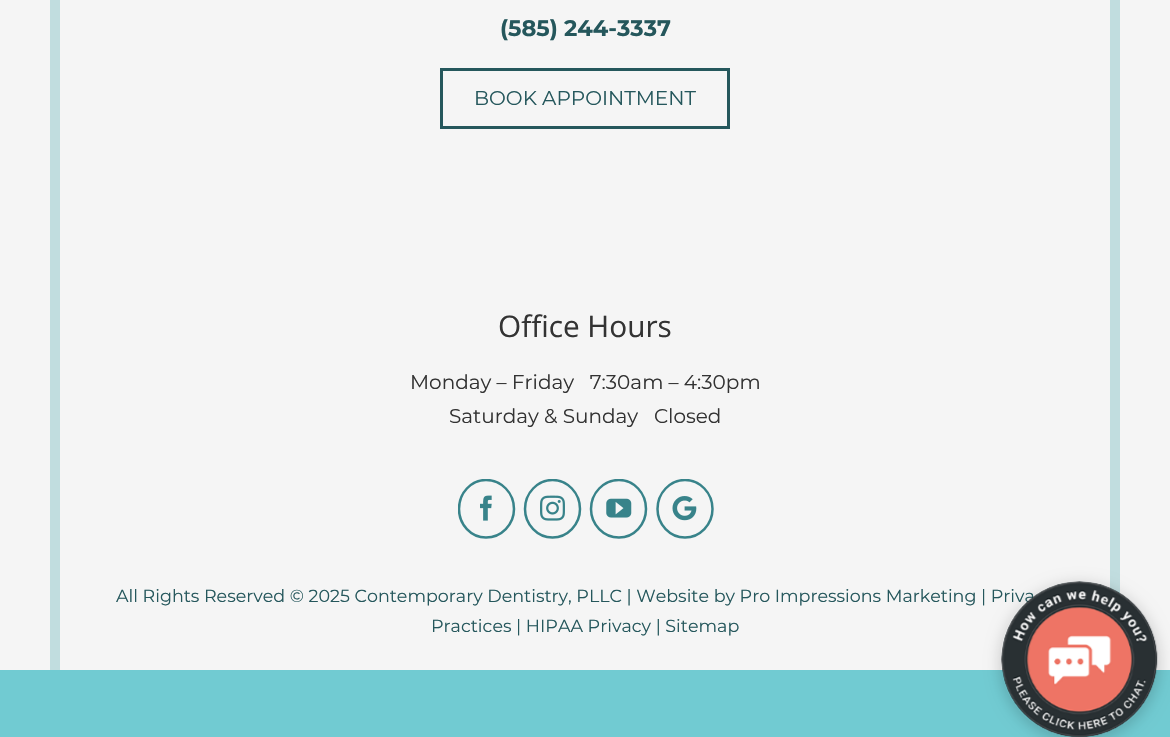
void draw(SkCanvas* canvas) {
  SkPaint paint;
  paint.setAntiAlias(true);
  auto face = [&](const char* family, int weight, float size, bool italic = false) {
    SkFontStyle style(weight, SkFontStyle::kNormal_Width,
      italic ? SkFontStyle::kItalic_Slant : SkFontStyle::kUpright_Slant);
    SkFont result(fontMgr->matchFamilyStyle(family, style), size);
    result.setSubpixel(true);
    return result;
  };
  auto paste = [&](const char* path, float x, float y, float w, float h) {
    auto image = SkImages::DeferredFromEncodedData(SkData::MakeFromFileName(path));
    canvas->drawImageRect(image, SkRect::MakeXYWH(x, y, w, h), SkSamplingOptions());
  };
  auto shape = [&](const char* data, bool evenOdd = false) {
    SkPath result = *SkParsePath::FromSVGString(data);
    if (evenOdd) result.setFillType(SkPathFillType::kEvenOdd);
    return result;
  };
  canvas->clear(0xfff5f5f5);
  paint.setColor(0xffc1dddf);
  canvas->drawPath(shape("M1120-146V551H1110V-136Z"), paint);
  canvas->drawPath(shape("M50 551V-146L60-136V551Z"), paint);
  paint.setStroke(true);
  paint.setStrokeWidth(3);
  paint.setColor(0xff25575c);
  canvas->drawRect(SkRect::MakeXYWH(441.5f, 69.5f, 287, 58), paint);
  canvas->save();
  canvas->clipRect(SkRect::MakeXYWH(458, 479, 256, 72));
  paint.setStrokeWidth(2.5f);
  paint.setColor(0xff38838a);
  canvas->drawPath(shape("M486 480C501.5 480 514 493 514 509C514 524.5 501.5 537.5 486 537.5C471 537.5 459 524.5 459 509C459 493 471 480 486 480Z"), paint);
  canvas->restore();
  paste("img/1.png", 480, 495, 12, 26);
  canvas->save();
  canvas->clipRect(SkRect::MakeXYWH(458, 479, 256, 72));
  canvas->drawPath(shape("M552.5 480C567.5 480 580 493 580 509C580 524.5 567.5 537.5 552.5 537.5C537.5 537.5 525 524.5 525 509C525 493 537.5 480 552.5 480Z"), paint);
  canvas->restore();
  paste("img/2.png", 540, 495, 25, 26);
  canvas->save();
  canvas->clipRect(SkRect::MakeXYWH(458, 479, 256, 72));
  canvas->drawPath(shape("M619 480C634 480 646 493 646 509C646 524.5 634 537.5 619 537.5C603.5 537.5 591 524.5 591 509C591 493 603.5 480 619 480Z"), paint);
  canvas->restore();
  paste("img/3.png", 606, 498, 26, 20);
  canvas->save();
  canvas->clipRect(SkRect::MakeXYWH(458, 479, 256, 72));
  canvas->drawPath(shape("M685 480C700 480 712.5 493 712.5 509C712.5 524.5 700 537.5 685 537.5C670 537.5 657.5 524.5 657.5 509C657.5 493 670 480 685 480Z"), paint);
  canvas->restore();
  paste("img/4.png", 672, 496, 25, 25);
  paint.setStroke(false);
  paint.setColor(0xffc1dddf);
  canvas->drawPath(shape("M1120 551V688L1110 678V551Z"), paint);
  paint.setColor(0x4d48a5ac);
  canvas->drawPath(shape("M50 688V551H60V678Z"), paint);
  paint.setColor(0xff71cbd2);
  canvas->drawRect(SkRect::MakeXYWH(0, 670, 1170, 67), paint);
  canvas->save();
  canvas->clipPath(shape("M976 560H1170V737H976ZM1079.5 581C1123 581 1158 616 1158 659.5C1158 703 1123 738 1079.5 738C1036 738 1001 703 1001 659.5C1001 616 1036 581 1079.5 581Z", true), true);
  paint.setColor(0x33000000);
  paint.setMaskFilter(SkMaskFilter::MakeBlur(kNormal_SkBlurStyle, 8));
  canvas->drawRoundRect(SkRect::MakeXYWH(1001, 585, 157, 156), 78, 78, paint);
  paint.setMaskFilter(nullptr);
  canvas->restore();
  auto f0 = face("Montserrat", 700, 22.5f);
  paint.setColor(0xff25575c);
  canvas->drawString("(585) 244-3337", 500, 36, f0, paint);
  auto f1 = face("Montserrat", 400, 20);
  canvas->drawString("BOOK APPOINTMENT", 474, 105, f1, paint);
  auto f2 = face("Open Sans", 400, 29.75f);
  paint.setColor(0xff333333);
  canvas->drawString("Office Hours", 498, 337, f2, paint);
  canvas->drawString("Monday – Friday   7:30am – 4:30pm", 410, 389, f1, paint);
  canvas->drawString("Saturday & Sunday   Closed", 449, 423, f1, paint);
  auto f3 = face("Montserrat", 400, 17.5f);
  paint.setColor(0xff25575c);
  canvas->drawString("All Rights Reserved © 2025 Contemporary Dentistry, PLLC | Website by Pro Impressions Marketing | Priva", 116, 602, f3, paint);
  canvas->drawString("Practices | HIPAA Privacy | Sitemap", 431, 632, f3, paint);
  paste("img/5.png", 1001, 581, 157, 156);
}
